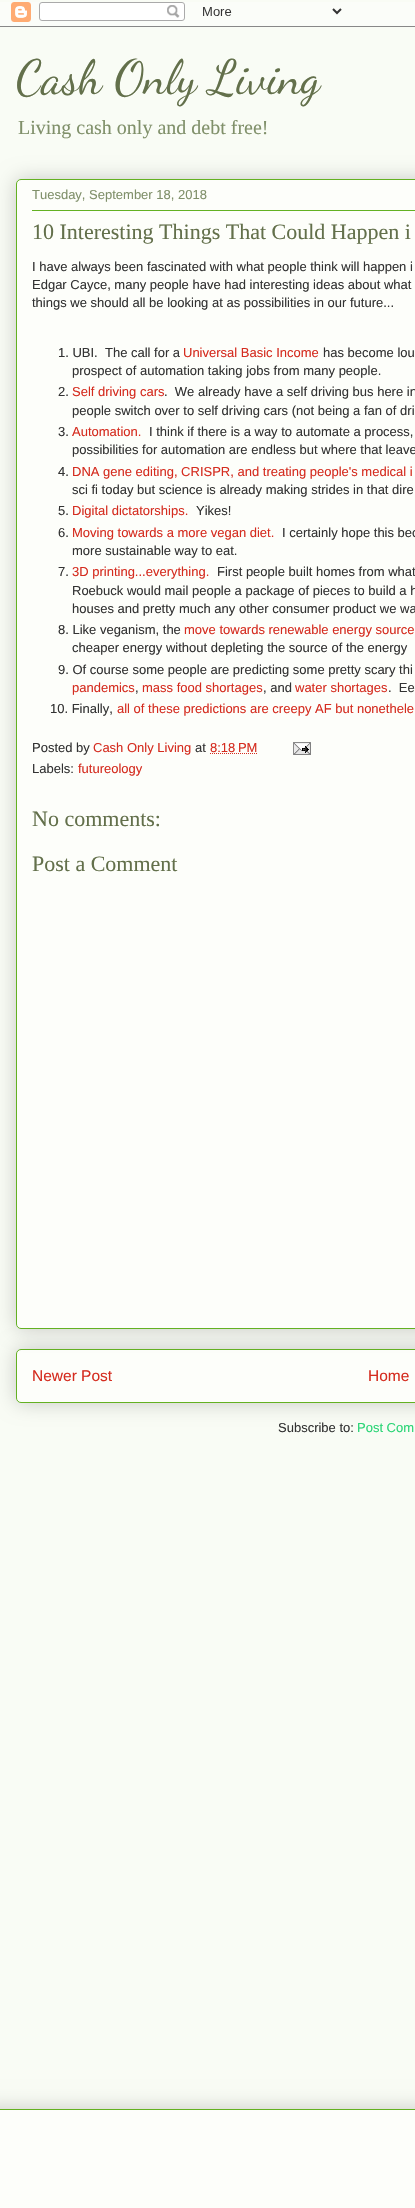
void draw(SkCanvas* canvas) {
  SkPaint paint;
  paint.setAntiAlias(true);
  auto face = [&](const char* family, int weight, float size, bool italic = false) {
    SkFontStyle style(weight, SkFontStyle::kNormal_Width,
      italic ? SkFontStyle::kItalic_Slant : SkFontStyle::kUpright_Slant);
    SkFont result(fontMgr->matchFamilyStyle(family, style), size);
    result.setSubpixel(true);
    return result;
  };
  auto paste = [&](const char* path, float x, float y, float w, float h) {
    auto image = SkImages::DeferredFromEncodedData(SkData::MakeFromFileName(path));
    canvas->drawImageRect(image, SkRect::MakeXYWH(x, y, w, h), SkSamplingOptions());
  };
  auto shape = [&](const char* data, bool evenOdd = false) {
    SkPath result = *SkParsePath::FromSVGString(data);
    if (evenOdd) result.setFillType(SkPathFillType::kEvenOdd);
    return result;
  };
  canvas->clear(0xfff9fcf5);
  paste("img/1.png", 0, 2, 415, 25);
  paint.setColor(0x33000000);
  paint.setMaskFilter(SkMaskFilter::MakeBlur(kNormal_SkBlurStyle, 10));
  canvas->drawRoundRect(SkRect::MakeXYWH(16, 1349, 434, 54), 5, 5, paint);
  paint.setMaskFilter(nullptr);
  paint.setColor(0xfffdfefa);
  canvas->drawRoundRect(SkRect::MakeXYWH(16.5f, 1349.5f, 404, 53), 4.5f, 4.5f, paint);
  paint.setStroke(true);
  paint.setStrokeWidth(1);
  paint.setColor(0xff63b122);
  canvas->drawRoundRect(SkRect::MakeXYWH(16.5f, 1349.5f, 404, 53), 4.5f, 4.5f, paint);
  paint.setStroke(false);
  paint.setColor(0x33000000);
  paint.setMaskFilter(SkMaskFilter::MakeBlur(kNormal_SkBlurStyle, 10));
  canvas->drawRoundRect(SkRect::MakeXYWH(16, 179, 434, 1150), 5, 5, paint);
  paint.setMaskFilter(nullptr);
  paint.setColor(0xfffdfefa);
  canvas->drawRoundRect(SkRect::MakeXYWH(16.5f, 179.5f, 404, 1149), 4.5f, 4.5f, paint);
  paint.setStroke(true);
  paint.setColor(0xff63b122);
  canvas->drawRoundRect(SkRect::MakeXYWH(16.5f, 179.5f, 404, 1149), 4.5f, 4.5f, paint);
  paint.setStroke(false);
  canvas->drawRect(SkRect::MakeXYWH(32, 210, 383, 1), paint);
  paint.setStroke(true);
  paint.setColor(0xffd52c1f);
  paint.setPathEffect(SkDashPathEffect::Make({{1, 1}}, 0));
  canvas->drawPath(shape("M210 753.5H257"), paint);
  paint.setPathEffect(nullptr);
  paste("img/2.png", 293, 742, 18, 13);
  paint.setStroke(false);
  paint.setColor(0x33000000);
  paint.setMaskFilter(SkMaskFilter::MakeBlur(kNormal_SkBlurStyle, 10));
  canvas->drawRect(SkRect::MakeXYWH(-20, 2109, 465, 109), paint);
  paint.setMaskFilter(nullptr);
  paint.setColor(0xfffdfefa);
  canvas->drawRect(SkRect::MakeXYWH(0, 2110, 415, 98), paint);
  paint.setColor(0xff63b122);
  canvas->drawRect(SkRect::MakeXYWH(0, 2109, 415, 1), paint);
  auto f0 = face("Dancing Script", 400, 48);
  paint.setColor(0xff63704b);
  canvas->drawString("Cash Only Living", 16, 93, f0, paint);
  auto f1 = face("Liberation Serif", 400, 20);
  paint.setColor(0xff80906a);
  canvas->drawString("Living cash only and debt free!", 18, 134, f1, paint);
  auto f2 = face("Liberation Sans", 400, 13);
  canvas->drawString("Tuesday, September 18, 2018", 32, 199, f2, paint);
  auto f3 = face("Liberation Serif", 400, 22);
  paint.setColor(0xff63704b);
  canvas->drawString("10 Interesting Things That Could Happen i", 32, 239, f3, paint);
  paint.setColor(0xff333333);
  {
    const struct { const char* s; float x, y; } items[] = {
      {"I have always been fascinated with what people think will happen i", 32, 271},
      {"Edgar Cayce, many people have had interesting ideas about what", 32, 289},
      {"things we should all be looking at as possibilities in our future...", 32, 307},
      {"1. UBI.  The call for a", 58, 357},
    };
    for (auto [s, x, y] : items) {
      canvas->drawString(s, x, y, f2, paint);
    }
  }
  paint.setColor(0xffd52c1f);
  canvas->drawString("Universal Basic Income", 183, 357, f2, paint);
  paint.setColor(0xff333333);
  {
    const struct { const char* s; float x, y; } items[] = {
      {"has become lou", 323, 357},
      {"prospect of automation taking jobs from many people.", 72, 375},
      {"2.", 58, 396},
    };
    for (auto [s, x, y] : items) {
      canvas->drawString(s, x, y, f2, paint);
    }
  }
  paint.setColor(0xffd52c1f);
  canvas->drawString("Self driving cars", 72, 396, f2, paint);
  paint.setColor(0xff333333);
  {
    const struct { const char* s; float x, y; } items[] = {
      {".  We already have a self driving bus here in", 164, 396},
      {"people switch over to self driving cars (not being a fan of dri", 72, 415},
      {"3.", 58, 436},
    };
    for (auto [s, x, y] : items) {
      canvas->drawString(s, x, y, f2, paint);
    }
  }
  paint.setColor(0xffd52c1f);
  canvas->drawString("Automation.", 72, 436, f2, paint);
  paint.setColor(0xff333333);
  {
    const struct { const char* s; float x, y; } items[] = {
      {"I think if there is a way to automate a process,", 149, 436},
      {"possibilities for automation are endless but where that leave", 72, 454},
      {"4.", 58, 476},
    };
    for (auto [s, x, y] : items) {
      canvas->drawString(s, x, y, f2, paint);
    }
  }
  paint.setColor(0xffd52c1f);
  canvas->drawString("DNA gene editing, CRISPR, and treating people's medical i", 72, 476, f2, paint);
  paint.setColor(0xff333333);
  canvas->drawString("sci fi today but science is already making strides in that dire", 72, 494, f2, paint);
  canvas->drawString("5.", 58, 515, f2, paint);
  paint.setColor(0xffd52c1f);
  canvas->drawString("Digital dictatorships.", 72, 515, f2, paint);
  paint.setColor(0xff333333);
  canvas->drawString("Yikes!", 196, 515, f2, paint);
  canvas->drawString("6.", 58, 537, f2, paint);
  paint.setColor(0xffd52c1f);
  canvas->drawString("Moving towards a more vegan diet.", 72, 537, f2, paint);
  paint.setColor(0xff333333);
  {
    const struct { const char* s; float x, y; } items[] = {
      {"I certainly hope this bec", 282, 537},
      {"more sustainable way to eat.", 72, 555},
      {"7.", 58, 576},
    };
    for (auto [s, x, y] : items) {
      canvas->drawString(s, x, y, f2, paint);
    }
  }
  paint.setColor(0xffd52c1f);
  canvas->drawString("3D printing...everything.", 72, 576, f2, paint);
  paint.setColor(0xff333333);
  {
    const struct { const char* s; float x, y; } items[] = {
      {"First people built homes from what", 217, 576},
      {"Roebuck would mail people a package of pieces to build a h", 72, 595},
      {"houses and pretty much any other consumer product we wa", 72, 613},
      {"8. Like veganism, the", 58, 634},
    };
    for (auto [s, x, y] : items) {
      canvas->drawString(s, x, y, f2, paint);
    }
  }
  paint.setColor(0xffd52c1f);
  canvas->drawString("move towards renewable energy source", 184, 634, f2, paint);
  paint.setColor(0xff333333);
  canvas->drawString("cheaper energy without depleting the source of the energy", 72, 652, f2, paint);
  canvas->drawString("9. Of course some people are predicting some pretty scary thi", 58, 674, f2, paint);
  paint.setColor(0xffd52c1f);
  canvas->drawString("pandemics", 72, 692, f2, paint);
  paint.setColor(0xff333333);
  canvas->drawString(",", 135, 692, f2, paint);
  paint.setColor(0xffd52c1f);
  canvas->drawString("mass food shortages", 142, 692, f2, paint);
  paint.setColor(0xff333333);
  canvas->drawString(", and", 263, 692, f2, paint);
  paint.setColor(0xffd52c1f);
  canvas->drawString("water shortages", 295, 692, f2, paint);
  paint.setColor(0xff333333);
  canvas->drawString(".  Ee", 388, 692, f2, paint);
  canvas->drawString("10. Finally,", 50, 713, f2, paint);
  paint.setColor(0xffd52c1f);
  canvas->drawString("all of these predictions are creepy AF but nonethele", 117, 713, f2, paint);
  paint.setColor(0xff333333);
  canvas->drawString("Posted by", 32, 752, f2, paint);
  paint.setColor(0xffd52c1f);
  canvas->drawString("Cash Only Living", 93, 752, f2, paint);
  paint.setColor(0xff333333);
  canvas->drawString("at", 195, 752, f2, paint);
  paint.setColor(0xffd52c1f);
  canvas->drawString("8:18 PM", 210, 752, f2, paint);
  paint.setColor(0xff333333);
  canvas->drawString("Labels:", 32, 773, f2, paint);
  paint.setColor(0xffd52c1f);
  canvas->drawString("futureology", 78, 773, f2, paint);
  paint.setColor(0xff63704b);
  canvas->drawString("No comments:", 32, 826, f3, paint);
  canvas->drawString("Post a Comment", 32, 871, f3, paint);
  auto f4 = face("Liberation Sans", 400, 15.5f);
  paint.setColor(0xffd52c1f);
  canvas->drawString("Newer Post", 32, 1381, f4, paint);
  canvas->drawString("Home", 368, 1381, f4, paint);
  paint.setColor(0xff333333);
  canvas->drawString("Subscribe to:", 278, 1432, f2, paint);
  paint.setColor(0xff29d575);
  canvas->drawString("Post Com", 357, 1432, f2, paint);
}
